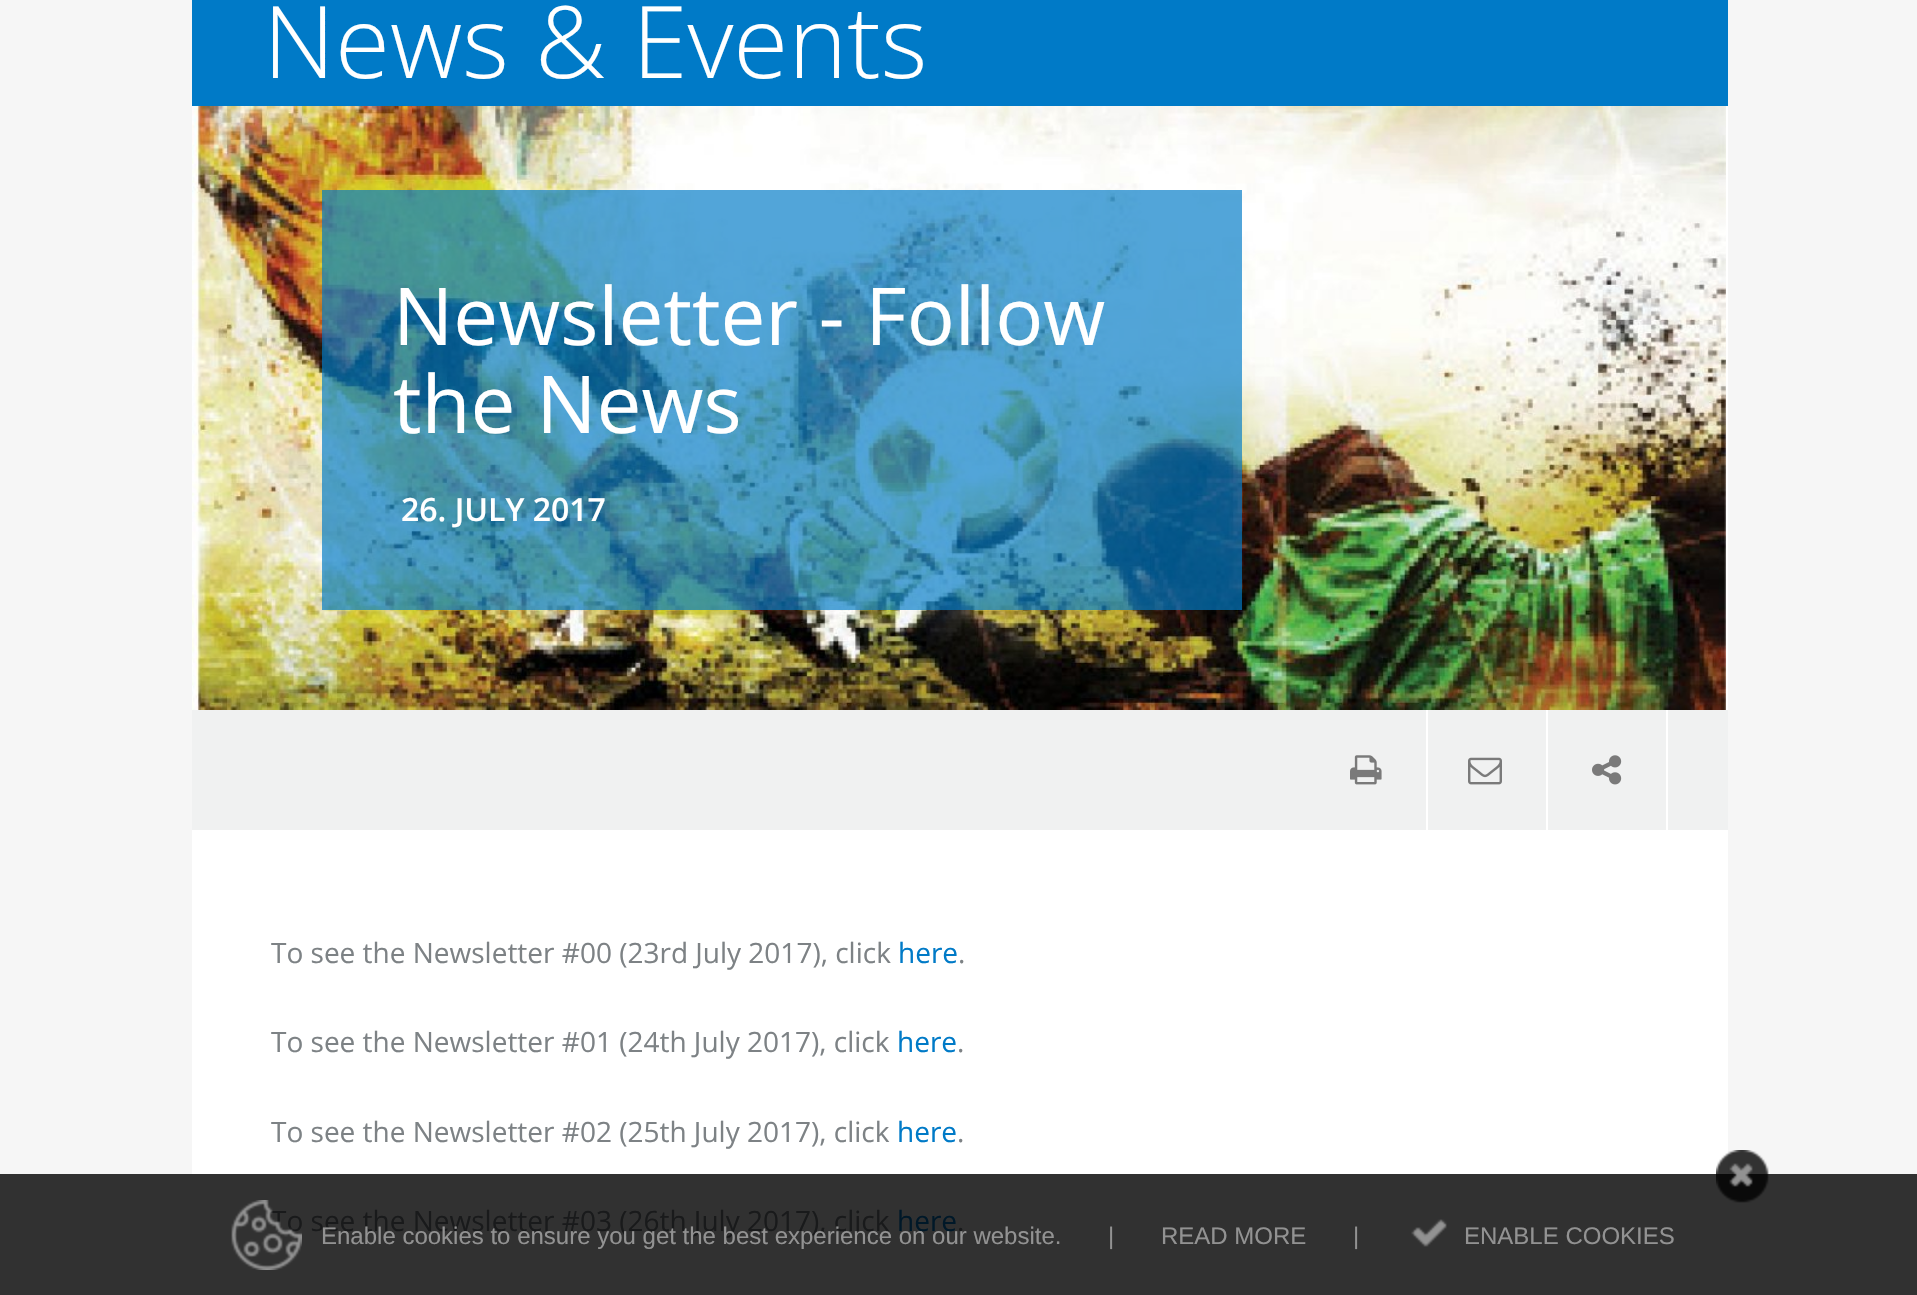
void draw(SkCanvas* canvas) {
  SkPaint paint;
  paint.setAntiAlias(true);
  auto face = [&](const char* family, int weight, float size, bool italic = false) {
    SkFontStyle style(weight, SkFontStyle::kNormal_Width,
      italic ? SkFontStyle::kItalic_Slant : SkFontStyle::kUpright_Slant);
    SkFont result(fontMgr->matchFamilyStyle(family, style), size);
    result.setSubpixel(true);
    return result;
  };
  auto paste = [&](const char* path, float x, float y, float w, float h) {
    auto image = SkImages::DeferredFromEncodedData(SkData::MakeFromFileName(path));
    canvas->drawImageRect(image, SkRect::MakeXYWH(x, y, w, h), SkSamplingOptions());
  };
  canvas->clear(0xfff6f6f6);
  {
    const struct { float x, y, w, h; SkColor color; } items[] = {
      {0, 1174, 1917, 121, 0xff313131},
      {192, 0, 1536, 106, 0xff007ac7},
      {192, 106, 1536, 1068, 0xffffffff},
    };
    for (auto [x, y, w, h, color] : items) {
      paint.setColor(color);
      canvas->drawRect(SkRect::MakeXYWH(x, y, w, h), paint);
    }
  }
  paste("img/1.png", 192, 106, 1534, 604);
  {
    const struct { float x, y, w, h; SkColor color; } items[] = {
      {322, 190, 920, 420, 0xad007ac7},
      {192, 710, 1536, 120, 0xfff0f1f1},
      {1426, 710, 2, 120, 0xffffffff},
    };
    for (auto [x, y, w, h, color] : items) {
      paint.setColor(color);
      canvas->drawRect(SkRect::MakeXYWH(x, y, w, h), paint);
    }
  }
  paste("img/2.png", 1350, 755, 32, 30);
  canvas->drawRect(SkRect::MakeXYWH(1546, 710, 2, 120), paint);
  paste("img/3.png", 1468, 757, 34, 28);
  canvas->drawRect(SkRect::MakeXYWH(1666, 710, 2, 120), paint);
  paste("img/4.png", 1592, 755, 30, 30);
  paste("img/5.png", 1716, 1150, 53, 53);
  paste("img/7.png", 1411, 1219, 36, 28);
  auto f0 = face("Open Sans", 300, 100);
  canvas->drawString("News & Events", 263, 78, f0, paint);
  auto f1 = face("Open Sans", 400, 80);
  canvas->drawString("Newsletter - Follow", 393, 345, f1, paint);
  canvas->drawString("the News", 393, 433, f1, paint);
  auto f2 = face("Open Sans", 600, 32);
  canvas->drawString("26. JULY 2017", 401, 521, f2, paint);
  auto f3 = face("Open Sans", 400, 28);
  paint.setColor(0xff7d8285);
  canvas->drawString("To see the Newsletter #00 (23rd July 2017), click", 271, 963, f3, paint);
  paint.setColor(0xff007ac7);
  canvas->drawString("here", 898, 963, f3, paint);
  paint.setColor(0xff7d8285);
  canvas->drawString(".", 958, 963, f3, paint);
  canvas->drawString("To see the Newsletter #01 (24th July 2017), click", 271, 1052, f3, paint);
  paint.setColor(0xff007ac7);
  canvas->drawString("here", 897, 1052, f3, paint);
  paint.setColor(0xff7d8285);
  canvas->drawString(".", 957, 1052, f3, paint);
  canvas->drawString("To see the Newsletter #02 (25th July 2017), click", 271, 1142, f3, paint);
  paint.setColor(0xff007ac7);
  canvas->drawString("here", 897, 1142, f3, paint);
  paint.setColor(0xff7d8285);
  canvas->drawString(".", 957, 1142, f3, paint);
  paint.setColor(0xff191a1b);
  canvas->drawString("To see the Newsletter #03 (26th July 2017), click", 271, 1231, f3, paint);
  paint.setColor(0xff001828);
  canvas->drawString("here", 897, 1231, f3, paint);
  paint.setColor(0xff191a1b);
  canvas->drawString(".", 957, 1231, f3, paint);
  paste("img/6.png", 231, 1200, 71, 70);
  auto f4 = face("Liberation Sans", 400, 24);
  paint.setColor(0xff929292);
  {
    const struct { const char* s; float x, y; } items[] = {
      {"Enable cookies to ensure you get the best experience on our website.", 321, 1244},
      {"|", 1108, 1244},
      {"READ MORE", 1161, 1244},
      {"|", 1353, 1244},
      {"ENABLE COOKIES", 1464, 1244},
    };
    for (auto [s, x, y] : items) {
      canvas->drawString(s, x, y, f4, paint);
    }
  }
}
